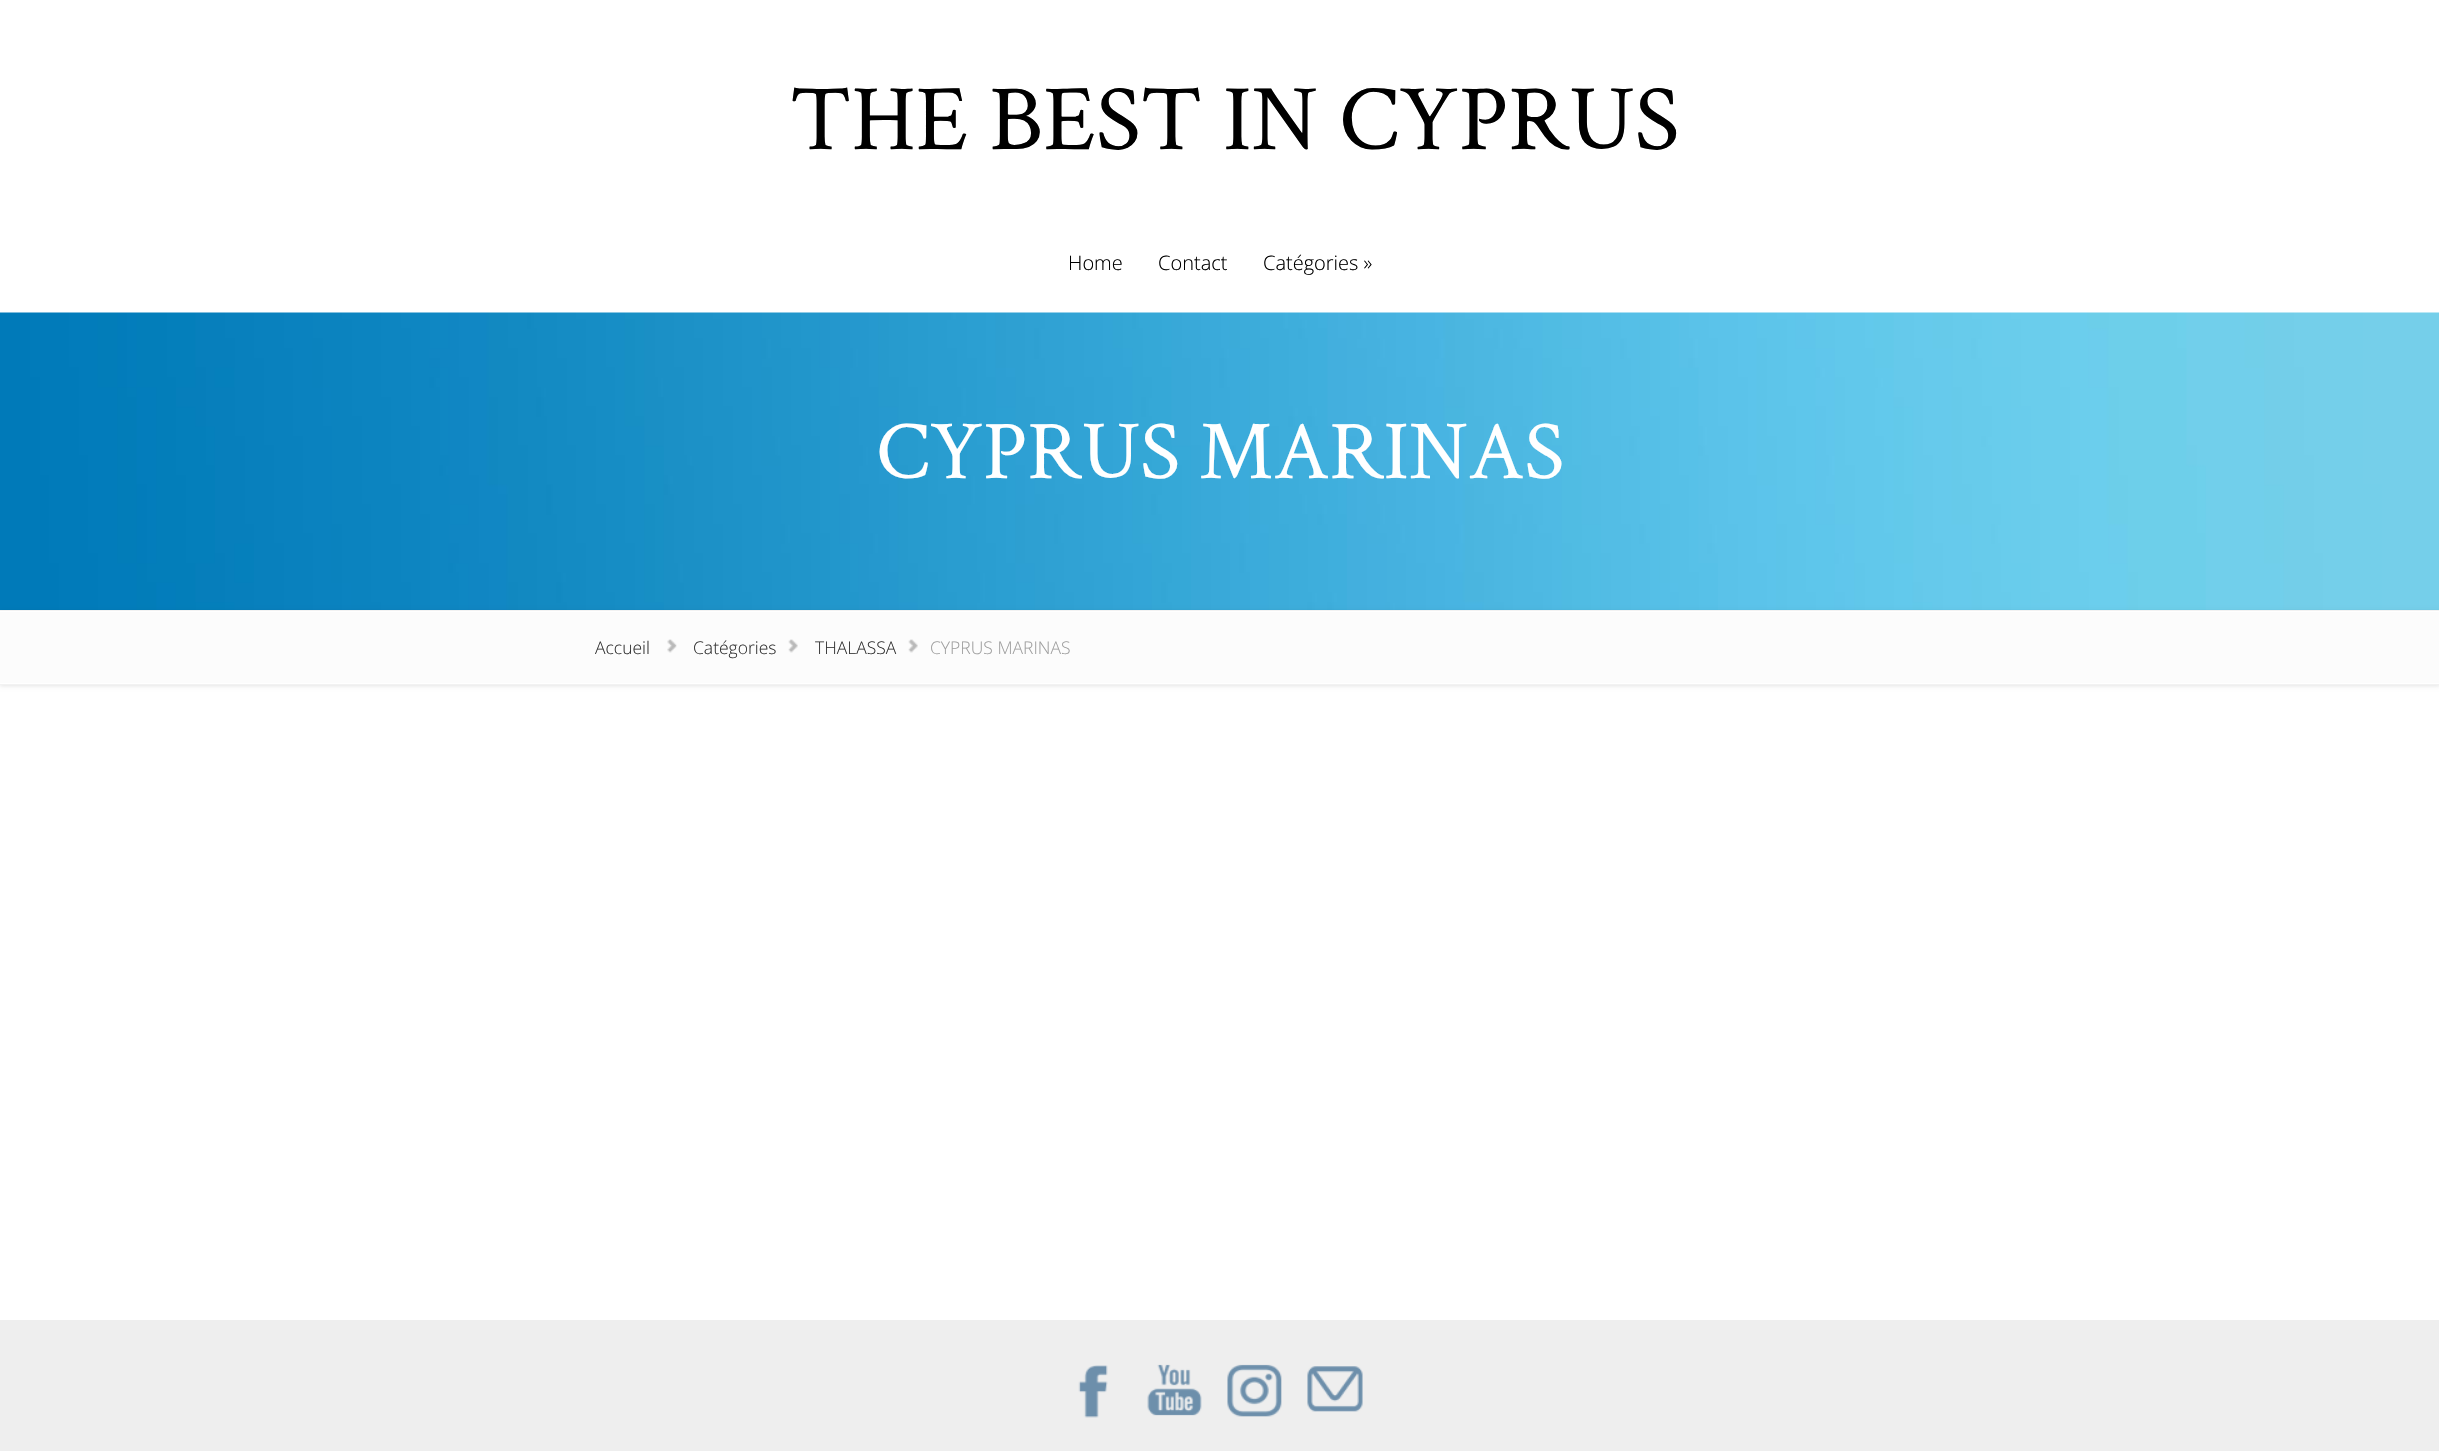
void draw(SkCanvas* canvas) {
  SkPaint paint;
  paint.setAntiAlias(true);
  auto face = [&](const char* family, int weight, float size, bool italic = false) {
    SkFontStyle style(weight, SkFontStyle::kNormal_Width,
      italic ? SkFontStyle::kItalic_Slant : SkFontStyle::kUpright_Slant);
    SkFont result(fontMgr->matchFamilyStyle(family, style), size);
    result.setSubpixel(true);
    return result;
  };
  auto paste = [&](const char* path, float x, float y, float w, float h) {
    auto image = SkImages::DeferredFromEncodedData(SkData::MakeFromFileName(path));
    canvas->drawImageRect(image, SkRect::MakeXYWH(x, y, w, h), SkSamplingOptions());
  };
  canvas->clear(0xffffffff);
  paste("img/1.png", 0, 312, 2439, 298);
  paint.setColor(0x1a000000);
  paint.setMaskFilter(SkMaskFilter::MakeBlur(kNormal_SkBlurStyle, 2));
  canvas->drawRect(SkRect::MakeXYWH(0, 611, 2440, 75), paint);
  paint.setMaskFilter(nullptr);
  {
    const struct { float x, y, w, h; SkColor color; } items[] = {
      {0, 612, 2439, 71, 0xfffcfcfc},
      {0, 683, 2439, 1, 0xffffffff},
      {0, 611, 2439, 1, 0xffffffff},
      {0, 610, 2439, 1, 0xfff2f2f2},
      {0, 684, 2439, 1, 0xfff2f2f2},
    };
    for (auto [x, y, w, h, color] : items) {
      paint.setColor(color);
      canvas->drawRect(SkRect::MakeXYWH(x, y, w, h), paint);
    }
  }
  paste("img/2.png", 667, 639, 10, 14);
  paste("img/3.png", 788, 639, 10, 14);
  paste("img/4.png", 908, 639, 10, 14);
  paint.setColor(0xffeeeeee);
  canvas->drawRect(SkRect::MakeXYWH(0, 1320, 2439, 131), paint);
  paste("img/5.png", 1078, 1365, 30, 53);
  paste("img/6.png", 1147, 1364, 55, 52);
  paste("img/7.png", 1227, 1364, 55, 53);
  paste("img/8.png", 1307, 1366, 56, 46);
  auto f0 = face("Crimson Text", 400, 93.75f);
  paint.setColor(0xff000000);
  canvas->drawString("THE BEST IN CYPRUS", 790, 149, f0, paint);
  auto f1 = face("Open Sans", 300, 20);
  {
    const struct { const char* s; float x, y; } items[] = {
      {"Home", 1068, 270},
      {"Contact", 1158, 270},
      {"Catégories »", 1263, 270},
    };
    for (auto [s, x, y] : items) {
      canvas->drawString(s, x, y, f1, paint);
    }
  }
  auto f2 = face("Crimson Text", 400, 83.75f);
  paint.setColor(0xffffffff);
  canvas->drawString("CYPRUS MARINAS", 876, 478, f2, paint);
  auto f3 = face("Open Sans", 300, 17.5f);
  paint.setColor(0xff333333);
  {
    const struct { const char* s; float x, y; } items[] = {
      {"Accueil", 595, 654},
      {"Catégories", 693, 654},
      {"THALASSA", 815, 654},
    };
    for (auto [s, x, y] : items) {
      canvas->drawString(s, x, y, f3, paint);
    }
  }
  paint.setColor(0xff9f9f9f);
  canvas->drawString("CYPRUS MARINAS", 930, 654, f3, paint);
}
